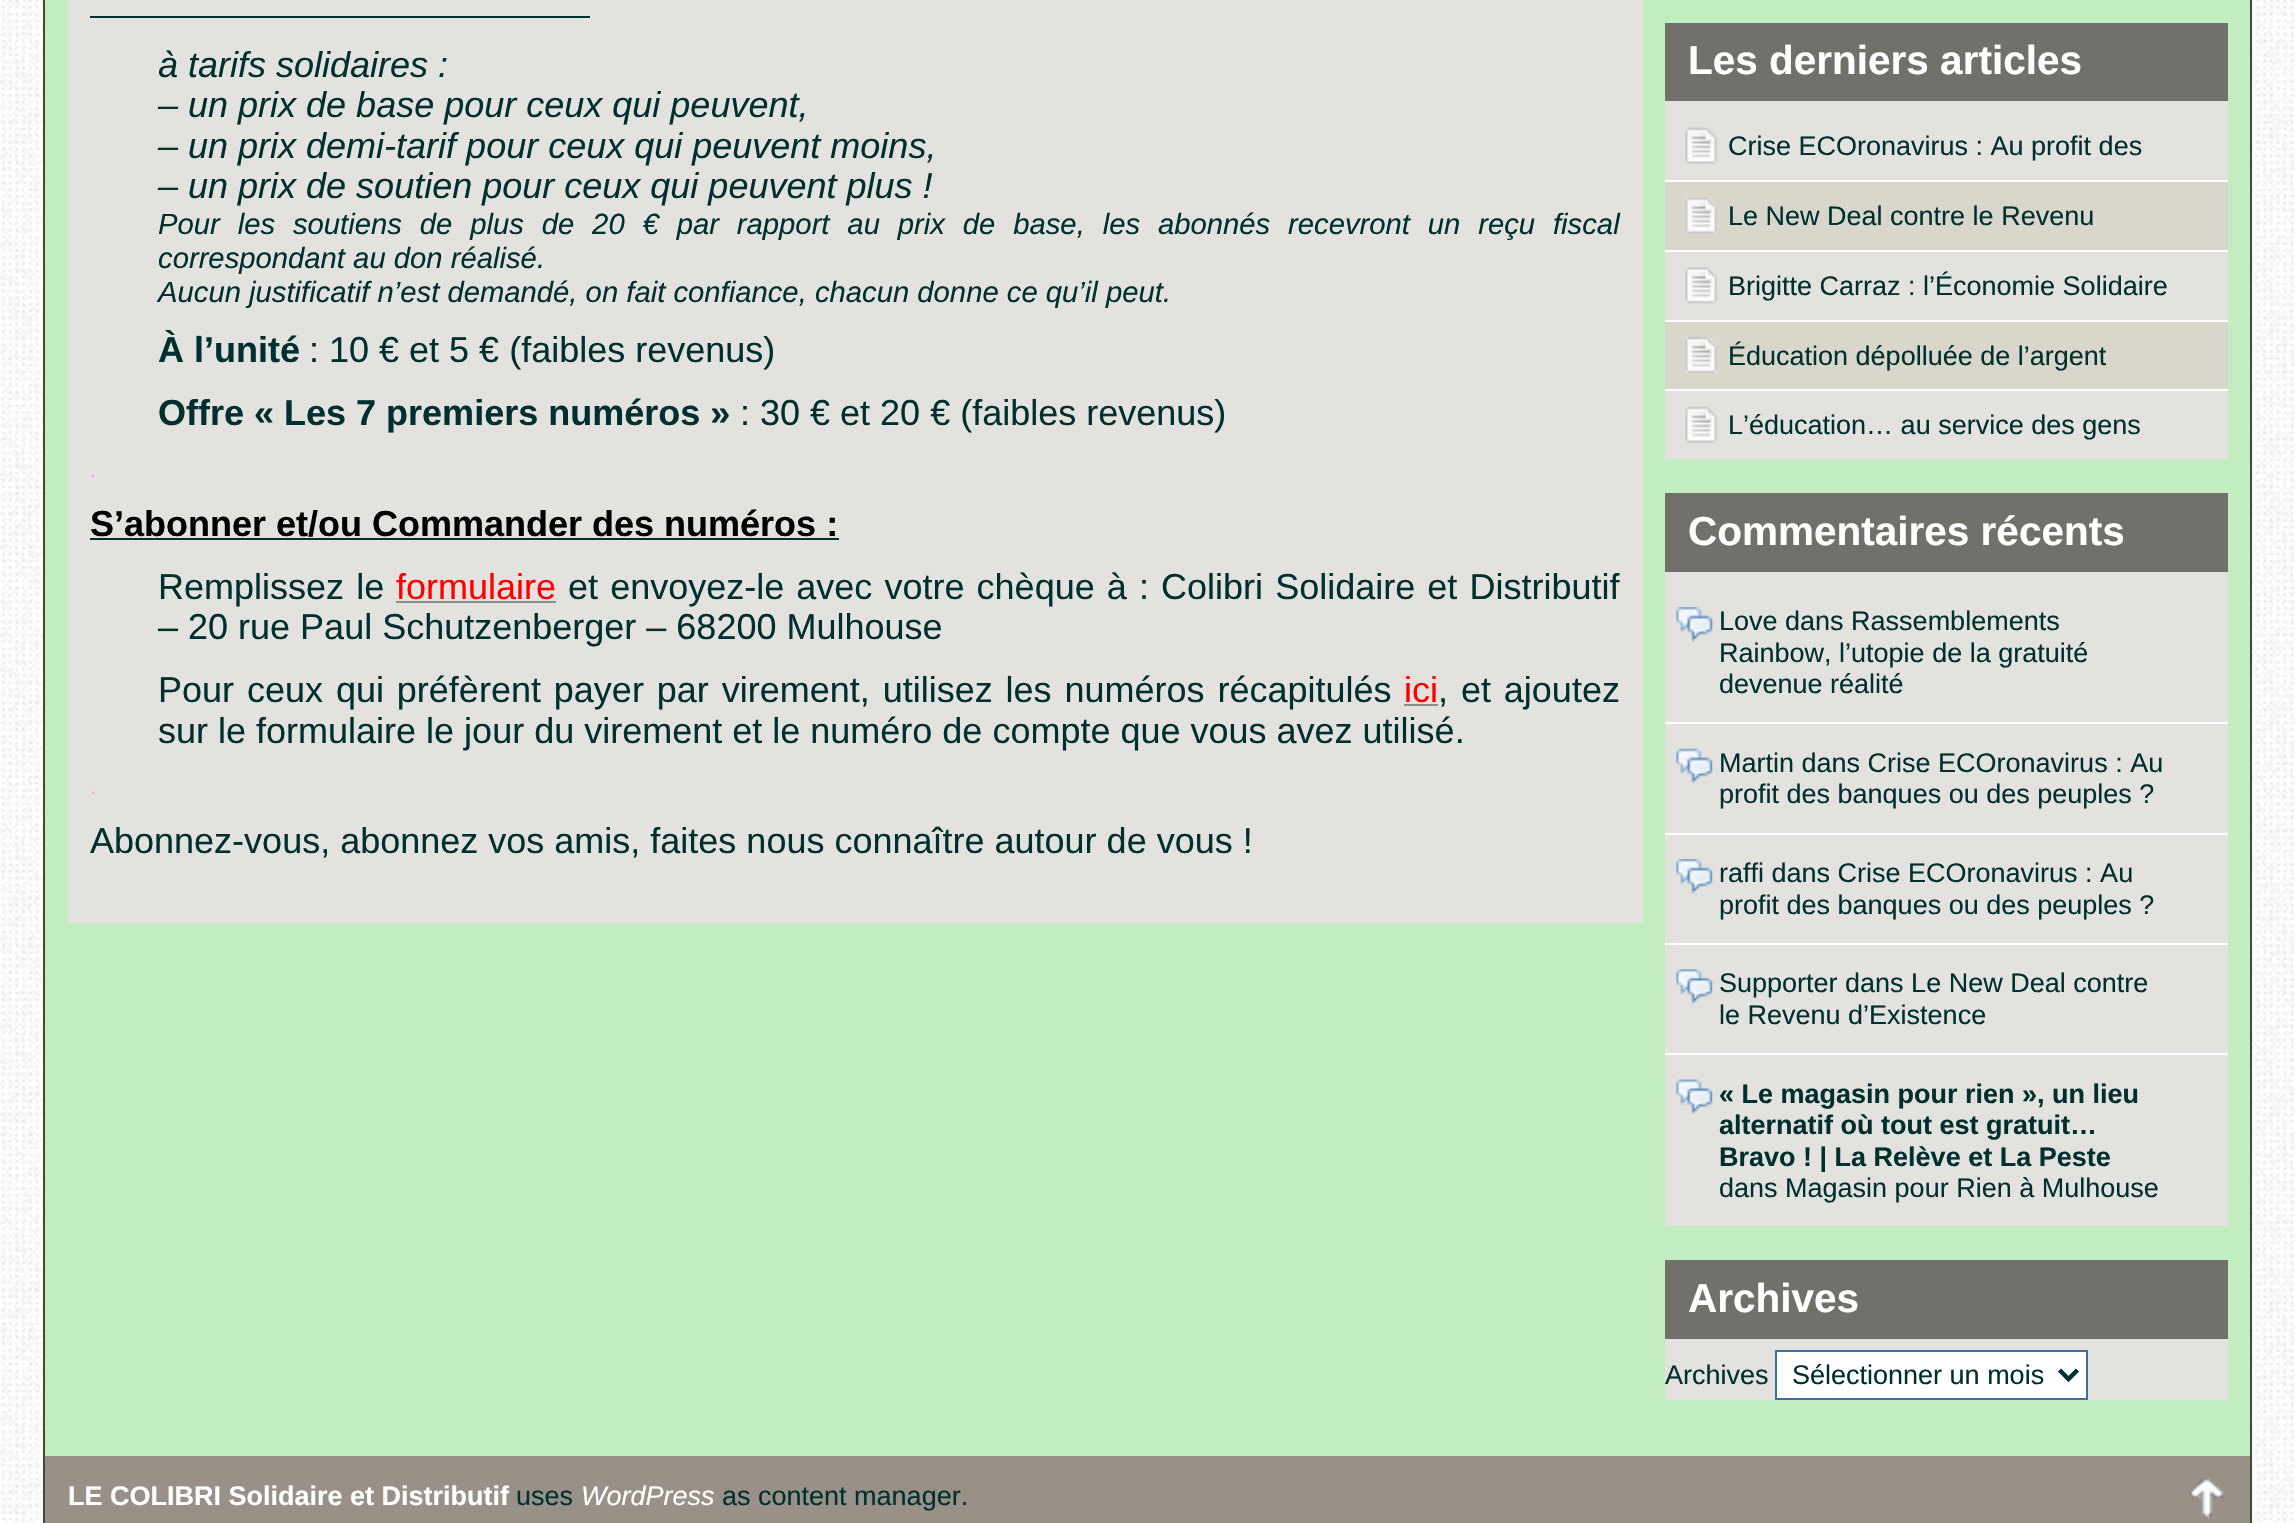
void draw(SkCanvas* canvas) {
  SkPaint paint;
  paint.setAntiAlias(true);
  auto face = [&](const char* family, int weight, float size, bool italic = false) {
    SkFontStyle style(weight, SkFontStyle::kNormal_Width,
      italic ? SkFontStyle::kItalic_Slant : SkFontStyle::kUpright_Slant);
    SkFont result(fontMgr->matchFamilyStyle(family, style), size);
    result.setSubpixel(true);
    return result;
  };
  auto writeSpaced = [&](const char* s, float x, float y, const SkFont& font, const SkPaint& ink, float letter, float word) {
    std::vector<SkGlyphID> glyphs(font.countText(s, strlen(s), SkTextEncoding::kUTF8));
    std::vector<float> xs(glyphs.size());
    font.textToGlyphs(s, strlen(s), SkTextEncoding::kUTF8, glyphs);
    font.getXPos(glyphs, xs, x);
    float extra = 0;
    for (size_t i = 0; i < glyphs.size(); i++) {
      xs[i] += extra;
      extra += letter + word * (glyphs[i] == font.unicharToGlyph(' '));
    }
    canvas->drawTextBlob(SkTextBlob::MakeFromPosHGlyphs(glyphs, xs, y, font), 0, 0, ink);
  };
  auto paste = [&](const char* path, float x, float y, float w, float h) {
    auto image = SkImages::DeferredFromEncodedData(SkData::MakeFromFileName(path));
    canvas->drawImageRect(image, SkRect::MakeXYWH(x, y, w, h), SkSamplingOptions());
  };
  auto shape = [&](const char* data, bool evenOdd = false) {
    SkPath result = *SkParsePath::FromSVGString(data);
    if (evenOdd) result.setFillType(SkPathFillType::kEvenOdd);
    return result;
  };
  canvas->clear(0xffffffff);
  paste("img/1.png", 0, 0, 2295, 1523);
  paint.setColor(0xffc1edc0);
  canvas->drawRect(SkRect::MakeXYWH(45, 0, 2205, 1456), paint);
  paint.setStroke(true);
  paint.setStrokeWidth(2);
  paint.setColor(0xff444739);
  canvas->drawRect(SkRect::MakeXYWH(44, -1, 2207, 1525), paint);
  paint.setStroke(false);
  {
    const struct { float x, y, w, h; SkColor color; } items[] = {
      {68, 0, 1575, 923, 0xffe3e2de},
      {90, 16, 500, 2, 0xff002f2f},
      {90, 538, 749, 2, 0xff002f2f},
      {396, 601, 160, 2, 0xff899087},
      {1404, 704, 34, 2, 0xff899087},
      {1665, 101, 563, 358, 0xffe3e2de},
      {1665, 23, 563, 78, 0xff71706b},
    };
    for (auto [x, y, w, h, color] : items) {
      paint.setColor(color);
      canvas->drawRect(SkRect::MakeXYWH(x, y, w, h), paint);
    }
  }
  paste("img/2.png", 1685, 127, 33, 37);
  paint.setColor(0xffd9d7cc);
  canvas->drawRect(SkRect::MakeXYWH(1665, 182, 563, 68), paint);
  paste("img/3.png", 1685, 197, 33, 37);
  paint.setColor(0xfffefefe);
  canvas->drawRect(SkRect::MakeXYWH(1665, 180, 563, 2), paint);
  paste("img/4.png", 1685, 267, 33, 37);
  canvas->drawRect(SkRect::MakeXYWH(1665, 250, 563, 2), paint);
  paint.setColor(0xffd9d7cc);
  canvas->drawRect(SkRect::MakeXYWH(1665, 322, 563, 67), paint);
  paste("img/5.png", 1685, 337, 33, 36);
  paint.setColor(0xfffefefe);
  canvas->drawRect(SkRect::MakeXYWH(1665, 320, 563, 2), paint);
  paste("img/2.png", 1685, 406, 33, 37);
  {
    const struct { float x, y, w, h; SkColor color; } items[] = {
      {1665, 389, 563, 2, 0xfffefefe},
      {1665, 572, 563, 654, 0xffe3e2de},
      {1665, 493, 563, 79, 0xff71706b},
    };
    for (auto [x, y, w, h, color] : items) {
      paint.setColor(color);
      canvas->drawRect(SkRect::MakeXYWH(x, y, w, h), paint);
    }
  }
  paste("img/6.png", 1676, 607, 37, 35);
  paste("img/7.png", 1676, 748, 37, 36);
  paint.setColor(0xfffefefe);
  canvas->drawRect(SkRect::MakeXYWH(1665, 722, 563, 2), paint);
  paste("img/6.png", 1676, 859, 37, 35);
  canvas->drawRect(SkRect::MakeXYWH(1665, 833, 563, 2), paint);
  paste("img/8.png", 1676, 969, 37, 35);
  canvas->drawRect(SkRect::MakeXYWH(1665, 943, 563, 2), paint);
  paste("img/9.png", 1676, 1079, 37, 35);
  {
    const struct { float x, y, w, h; SkColor color; } items[] = {
      {1665, 1053, 563, 2, 0xfffefefe},
      {1665, 1339, 563, 61, 0xffe3e2de},
      {1665, 1260, 563, 79, 0xff71706b},
    };
    for (auto [x, y, w, h, color] : items) {
      paint.setColor(color);
      canvas->drawRect(SkRect::MakeXYWH(x, y, w, h), paint);
    }
  }
  paint.setColor(0xffffffff);
  canvas->drawRect(SkRect::MakeXYWH(1776, 1351, 311, 48), paint);
  paint.setStroke(true);
  paint.setColor(0xff3f6e9d);
  canvas->drawRect(SkRect::MakeXYWH(1776, 1351, 311, 48), paint);
  paint.setStrokeWidth(4.5f);
  paint.setColor(0xff002f2f);
  canvas->drawPath(shape("M2059.5 1370L2068.5 1379L2077.5 1370"), paint);
  paint.setStroke(false);
  paint.setColor(0xff999087);
  canvas->drawRect(SkRect::MakeXYWH(45, 1456, 2205, 67), paint);
  paste("img/10.png", 2189, 1477, 35, 42);
  auto f0 = face("Liberation Sans", 400, 36, true);
  paint.setColor(0xff002f2f);
  {
    const struct { const char* s; float x, y; } items[] = {
      {"à tarifs solidaires :", 158, 77},
      {"– un prix de base pour ceux qui peuvent,", 158, 117},
      {"– un prix demi-tarif pour ceux qui peuvent moins,", 158, 158},
      {"– un prix de soutien pour ceux qui peuvent plus !", 158, 198},
    };
    for (auto [s, x, y] : items) {
      canvas->drawString(s, x, y, f0, paint);
    }
  }
  auto f1 = face("Liberation Sans", 400, 29.25f, true);
  writeSpaced("Pour les soutiens de plus de 20 € par rapport au prix de base, les abonnés recevront un reçu fiscal", 158, 234, f1, paint, 0, 9.75f);
  canvas->drawString("correspondant au don réalisé.", 158, 268, f1, paint);
  canvas->drawString("Aucun justificatif n’est demandé, on fait confiance, chacun donne ce qu’il peut.", 158, 302, f1, paint);
  auto f2 = face("Liberation Sans", 700, 36);
  canvas->drawString("À l’unité", 158, 362, f2, paint);
  auto f3 = face("Liberation Sans", 400, 36);
  canvas->drawString(": 10 € et 5 € (faibles revenus)", 309, 362, f3, paint);
  canvas->drawString("Offre « Les 7 premiers numéros »", 158, 425, f2, paint);
  canvas->drawString(": 30 € et 20 € (faibles revenus)", 740, 425, f3, paint);
  auto f4 = face("Liberation Sans", 400, 22);
  paint.setColor(0xffff99ff);
  canvas->drawString(".", 90, 477, f4, paint);
  paint.setColor(0xff000000);
  canvas->drawString("S’abonner et/ou Commander des numéros :", 90, 536, f2, paint);
  paint.setColor(0xff002f2f);
  writeSpaced("Remplissez le", 158, 599, f3, paint, 0, 2.1f);
  paint.setColor(0xffff0000);
  canvas->drawString("formulaire", 396, 599, f3, paint);
  paint.setColor(0xff002f2f);
  writeSpaced("et envoyez-le avec votre chèque à : Colibri Solidaire et Distributif", 568, 599, f3, paint, 0, 2.1f);
  canvas->drawString("– 20 rue Paul Schutzenberger – 68200 Mulhouse", 158, 639, f3, paint);
  writeSpaced("Pour ceux qui préfèrent payer par virement, utilisez les numéros récapitulés", 158, 702, f3, paint, 0, 2.9f);
  paint.setColor(0xffff0000);
  canvas->drawString("ici", 1404, 702, f3, paint);
  paint.setColor(0xff002f2f);
  writeSpaced(", et ajoutez", 1438, 702, f3, paint, 0, 2.9f);
  canvas->drawString("sur le formulaire le jour du virement et le numéro de compte que vous avez utilisé.", 158, 743, f3, paint);
  paint.setColor(0xffff99ff);
  canvas->drawString(".", 90, 794, f4, paint);
  paint.setColor(0xff002f2f);
  canvas->drawString("Abonnez-vous, abonnez vos amis, faites nous connaître autour de vous !", 90, 853, f3, paint);
  auto f5 = face("Liberation Sans", 700, 40.5f);
  paint.setColor(0xfffefefe);
  canvas->drawString("Les derniers articles", 1688, 74, f5, paint);
  auto f6 = face("Liberation Sans", 400, 27);
  paint.setColor(0xff002f2f);
  {
    const struct { const char* s; float x, y; } items[] = {
      {"Crise ECOronavirus : Au profit des", 1728, 155},
      {"Le New Deal contre le Revenu", 1728, 225},
      {"Brigitte Carraz : l’Économie Solidaire", 1728, 295},
      {"Éducation dépolluée de l’argent", 1728, 365},
      {"L’éducation… au service des gens", 1728, 434},
    };
    for (auto [s, x, y] : items) {
      canvas->drawString(s, x, y, f6, paint);
    }
  }
  paint.setColor(0xfffefefe);
  canvas->drawString("Commentaires récents", 1688, 545, f5, paint);
  paint.setColor(0xff002f2f);
  {
    const struct { const char* s; float x, y; } items[] = {
      {"Love dans Rassemblements", 1719, 630},
      {"Rainbow, l’utopie de la gratuité", 1719, 662},
      {"devenue réalité", 1719, 693},
      {"Martin dans Crise ECOronavirus : Au", 1719, 772},
      {"profit des banques ou des peuples ?", 1719, 803},
      {"raffi dans Crise ECOronavirus : Au", 1719, 882},
      {"profit des banques ou des peuples ?", 1719, 914},
      {"Supporter dans Le New Deal contre", 1719, 992},
      {"le Revenu d’Existence", 1719, 1024},
    };
    for (auto [s, x, y] : items) {
      canvas->drawString(s, x, y, f6, paint);
    }
  }
  auto f7 = face("Liberation Sans", 700, 27);
  {
    const struct { const char* s; float x, y; } items[] = {
      {"« Le magasin pour rien », un lieu", 1719, 1103},
      {"alternatif où tout est gratuit…", 1719, 1134},
      {"Bravo ! | La Relève et La Peste", 1719, 1166},
    };
    for (auto [s, x, y] : items) {
      canvas->drawString(s, x, y, f7, paint);
    }
  }
  canvas->drawString("dans Magasin pour Rien à Mulhouse", 1719, 1197, f6, paint);
  paint.setColor(0xfffefefe);
  canvas->drawString("Archives", 1688, 1312, f5, paint);
  paint.setColor(0xff002f2f);
  canvas->drawString("Archives", 1665, 1384, f6, paint);
  canvas->drawString("Sélectionner un mois", 1792, 1384, f6, paint);
  paint.setColor(0xfffefefe);
  canvas->drawString("LE COLIBRI Solidaire et Distributif", 68, 1505, f7, paint);
  paint.setColor(0xff002f2f);
  canvas->drawString("uses", 516, 1505, f6, paint);
  auto f8 = face("Liberation Sans", 400, 27, true);
  paint.setColor(0xfffefefe);
  canvas->drawString("WordPress", 581, 1505, f8, paint);
  paint.setColor(0xff002f2f);
  canvas->drawString("as content manager.", 722, 1505, f6, paint);
}
